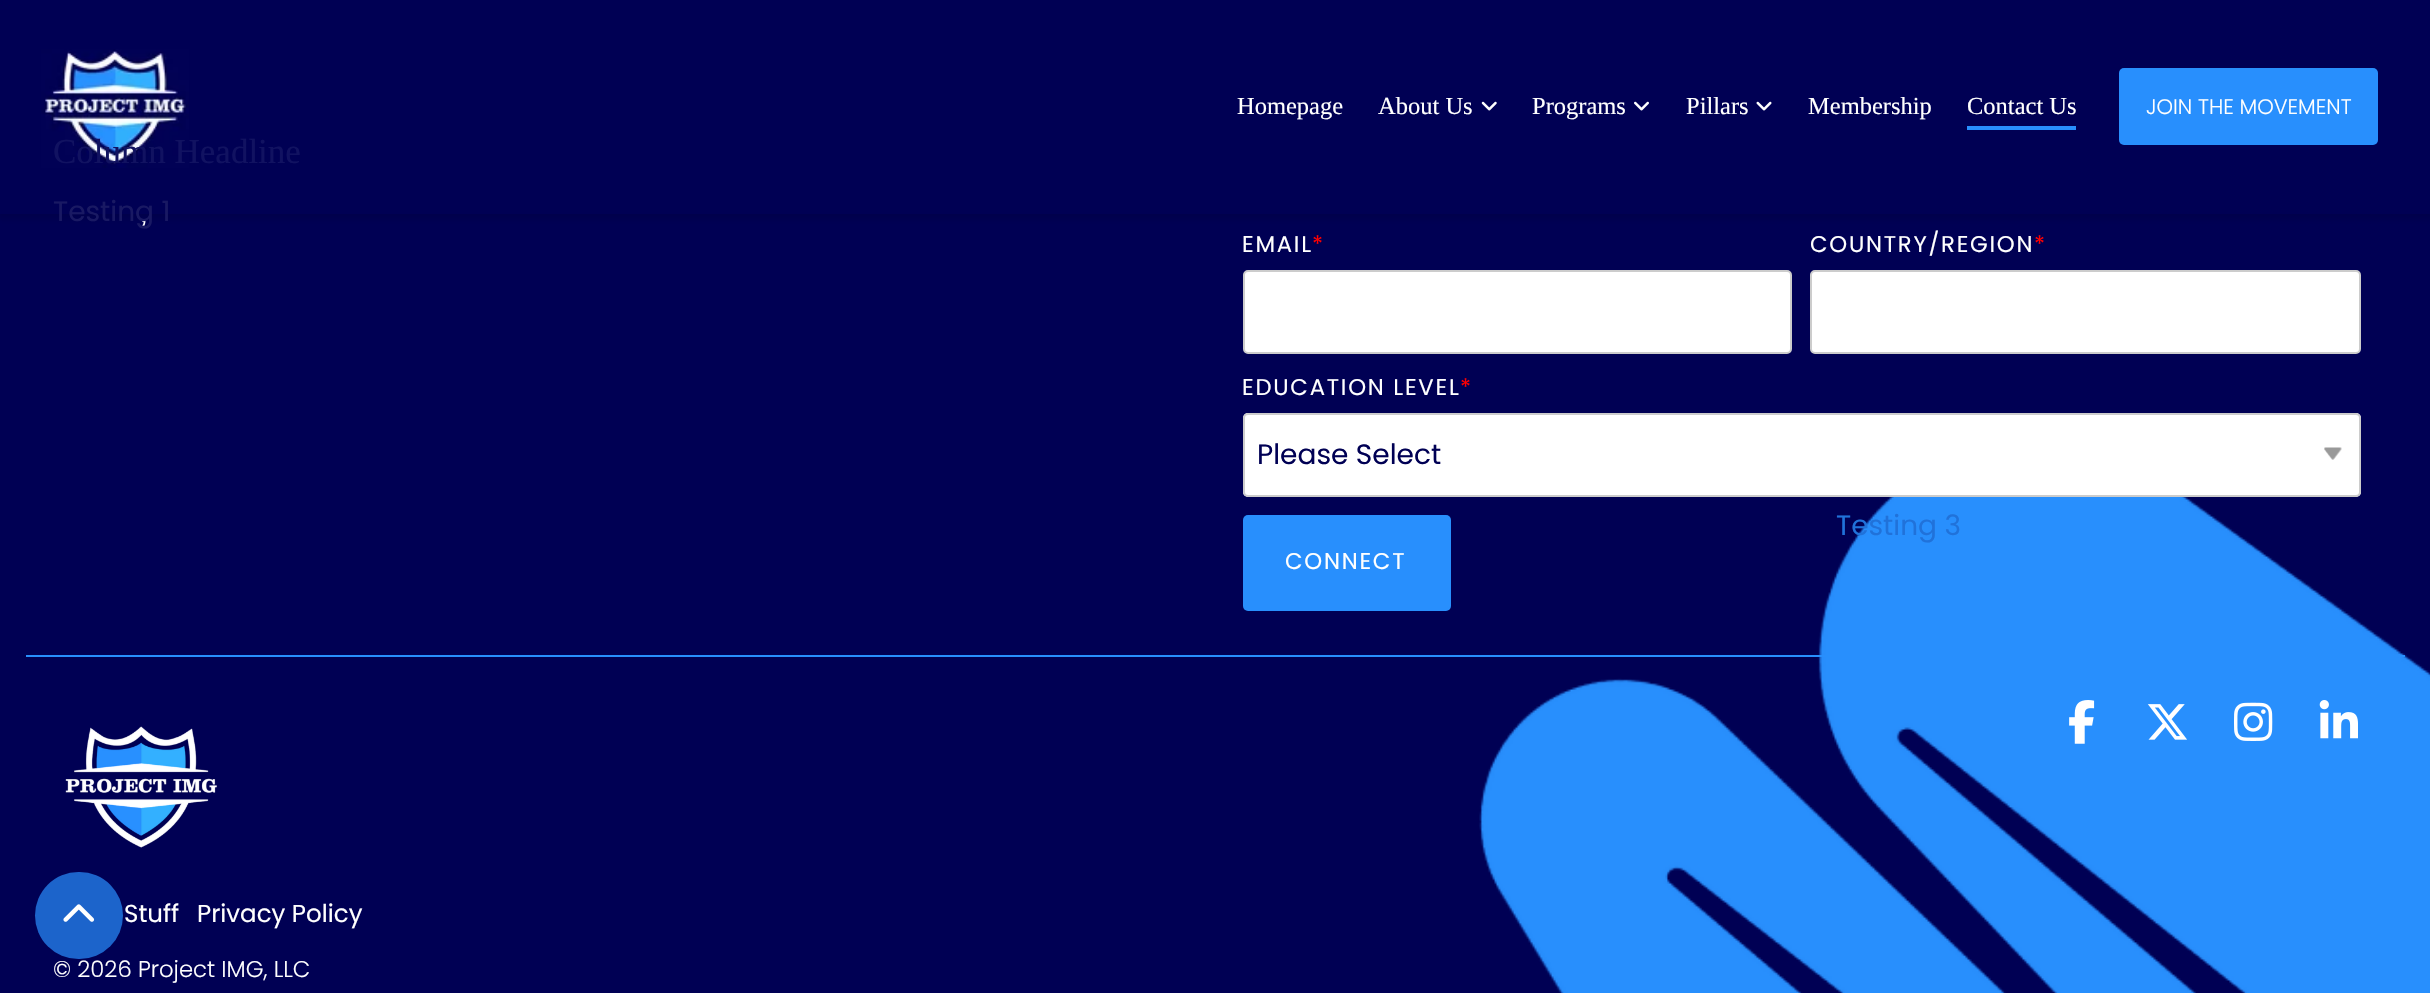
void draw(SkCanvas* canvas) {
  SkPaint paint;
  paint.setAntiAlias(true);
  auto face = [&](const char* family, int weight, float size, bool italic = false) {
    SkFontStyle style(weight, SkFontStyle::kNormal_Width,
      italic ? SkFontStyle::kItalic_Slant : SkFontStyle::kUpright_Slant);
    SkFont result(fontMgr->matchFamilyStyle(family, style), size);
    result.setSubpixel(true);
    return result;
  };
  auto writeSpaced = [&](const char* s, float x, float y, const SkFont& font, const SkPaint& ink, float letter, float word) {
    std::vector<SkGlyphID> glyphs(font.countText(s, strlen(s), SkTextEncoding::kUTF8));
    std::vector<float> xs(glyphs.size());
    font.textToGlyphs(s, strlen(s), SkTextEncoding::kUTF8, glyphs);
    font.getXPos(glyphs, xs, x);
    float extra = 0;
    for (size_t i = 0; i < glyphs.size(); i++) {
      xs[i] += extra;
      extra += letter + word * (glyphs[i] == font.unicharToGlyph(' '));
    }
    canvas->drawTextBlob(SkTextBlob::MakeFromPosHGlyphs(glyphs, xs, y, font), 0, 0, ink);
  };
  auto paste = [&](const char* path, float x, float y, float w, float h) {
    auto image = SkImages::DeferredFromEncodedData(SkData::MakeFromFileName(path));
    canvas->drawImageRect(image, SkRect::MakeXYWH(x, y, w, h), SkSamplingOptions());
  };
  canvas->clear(0xffffffff);
  paste("img/5.png", 0, 214, 2430, 779);
  paint.setColor(0x1a000000);
  paint.setMaskFilter(SkMaskFilter::MakeBlur(kNormal_SkBlurStyle, 2.5f));
  canvas->drawRect(SkRect::MakeXYWH(-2, 2, 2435, 217), paint);
  paint.setMaskFilter(nullptr);
  paint.setColor(0xff000054);
  canvas->drawRect(SkRect::MakeXYWH(0, 0, 2430, 214), paint);
  paste("img/1.png", 41, 49, 148, 119);
  paste("img/2.png", 1481, 101, 16, 10);
  paste("img/3.png", 1634, 101, 15, 10);
  paste("img/4.png", 1756, 101, 16, 10);
  paint.setColor(0xff288ffd);
  canvas->drawRect(SkRect::MakeXYWH(1967, 126, 109, 4), paint);
  canvas->drawRoundRect(SkRect::MakeXYWH(2119, 68, 259, 77), 5, 5, paint);
  paint.setColor(0xffffffff);
  canvas->drawRoundRect(SkRect::MakeXYWH(1244, 271, 547, 82), 4, 4, paint);
  paint.setStroke(true);
  paint.setStrokeWidth(2);
  paint.setColor(0xffcccccc);
  canvas->drawRoundRect(SkRect::MakeXYWH(1244, 271, 547, 82), 4, 4, paint);
  paint.setStroke(false);
  paint.setColor(0xffffffff);
  canvas->drawRoundRect(SkRect::MakeXYWH(1811, 271, 549, 82), 4, 4, paint);
  paint.setStroke(true);
  paint.setColor(0xffcccccc);
  canvas->drawRoundRect(SkRect::MakeXYWH(1811, 271, 549, 82), 4, 4, paint);
  paint.setStroke(false);
  paint.setColor(0xffffffff);
  canvas->drawRoundRect(SkRect::MakeXYWH(1243, 413, 1118, 84), 5, 5, paint);
  paste("img/6.png", 2324, 447, 18, 13);
  paint.setStroke(true);
  paint.setColor(0xffcccccc);
  canvas->drawRoundRect(SkRect::MakeXYWH(1244, 414, 1116, 82), 4, 4, paint);
  paint.setStroke(false);
  paint.setColor(0xff288ffd);
  canvas->drawRoundRect(SkRect::MakeXYWH(1243, 515, 208, 96), 5, 5, paint);
  canvas->drawRect(SkRect::MakeXYWH(26, 655, 2379, 2), paint);
  paste("img/7.png", 2069, 700, 26, 44);
  paste("img/8.png", 2147, 704, 40, 36);
  paste("img/9.png", 2234, 702, 39, 39);
  paste("img/10.png", 2319, 700, 39, 39);
  paste("img/11.png", 65, 726, 153, 122);
  paint.setColor(0xb3288ffd);
  canvas->drawRoundRect(SkRect::MakeXYWH(35, 872, 88, 87), 43.5f, 43.5f, paint);
  paste("img/12.png", 63, 904, 32, 18);
  auto f0 = face("Liberation Serif", 400, 24.5f);
  paint.setColor(0xffffffff);
  {
    const struct { const char* s; float x, y; } items[] = {
      {"Homepage", 1237, 114},
      {"About Us", 1378, 114},
      {"Programs", 1532, 114},
      {"Pillars", 1686, 114},
      {"Membership", 1808, 114},
      {"Contact Us", 1967, 114},
    };
    for (auto [s, x, y] : items) {
      canvas->drawString(s, x, y, f0, paint);
    }
  }
  auto f1 = face("Poppins", 300, 21);
  canvas->drawString("JOIN THE MOVEMENT", 2146, 114, f1, paint);
  auto f2 = face("Liberation Serif", 400, 35);
  paint.setColor(0xff111261);
  canvas->drawString("Column Headline", 53, 163, f2, paint);
  auto f3 = face("Poppins", 400, 28);
  paint.setColor(0xff2072da);
  canvas->drawString("Testing 3", 1836, 535, f3, paint);
  auto f4 = face("Liberation Sans", 400, 28);
  paint.setColor(0xffffffff);
  canvas->drawString(",", 140, 222, f4, paint);
  paint.setColor(0xff191963);
  canvas->drawString("Testing 1", 53, 221, f3, paint);
  auto f5 = face("Poppins", 400, 22.75f);
  paint.setColor(0xffffffff);
  writeSpaced("EMAIL", 1242, 252, f5, paint, 1.75f, 0);
  paint.setColor(0xffff0000);
  writeSpaced("*", 1312, 252, f5, paint, 1.75f, 0);
  paint.setColor(0xffffffff);
  writeSpaced("COUNTRY/REGION", 1810, 252, f5, paint, 1.75f, 0);
  paint.setColor(0xffff0000);
  writeSpaced("*", 2034, 252, f5, paint, 1.75f, 0);
  paint.setColor(0xffffffff);
  writeSpaced("EDUCATION LEVEL", 1242, 395, f5, paint, 1.75f, 0);
  paint.setColor(0xffff0000);
  writeSpaced("*", 1460, 395, f5, paint, 1.75f, 0);
  paint.setColor(0xff000054);
  canvas->drawString("Please Select", 1257, 464, f3, paint);
  paint.setColor(0xffffffff);
  writeSpaced("CONNECT", 1285, 569, f5, paint, 1.75f, 0);
  auto f6 = face("Poppins", 400, 24.5f);
  canvas->drawString("Stuff", 124, 922, f6, paint);
  canvas->drawString("Privacy Policy", 197, 922, f6, paint);
  auto f7 = face("Poppins", 300, 22.75f);
  canvas->drawString("© 2026 Project IMG, LLC", 53, 977, f7, paint);
}
